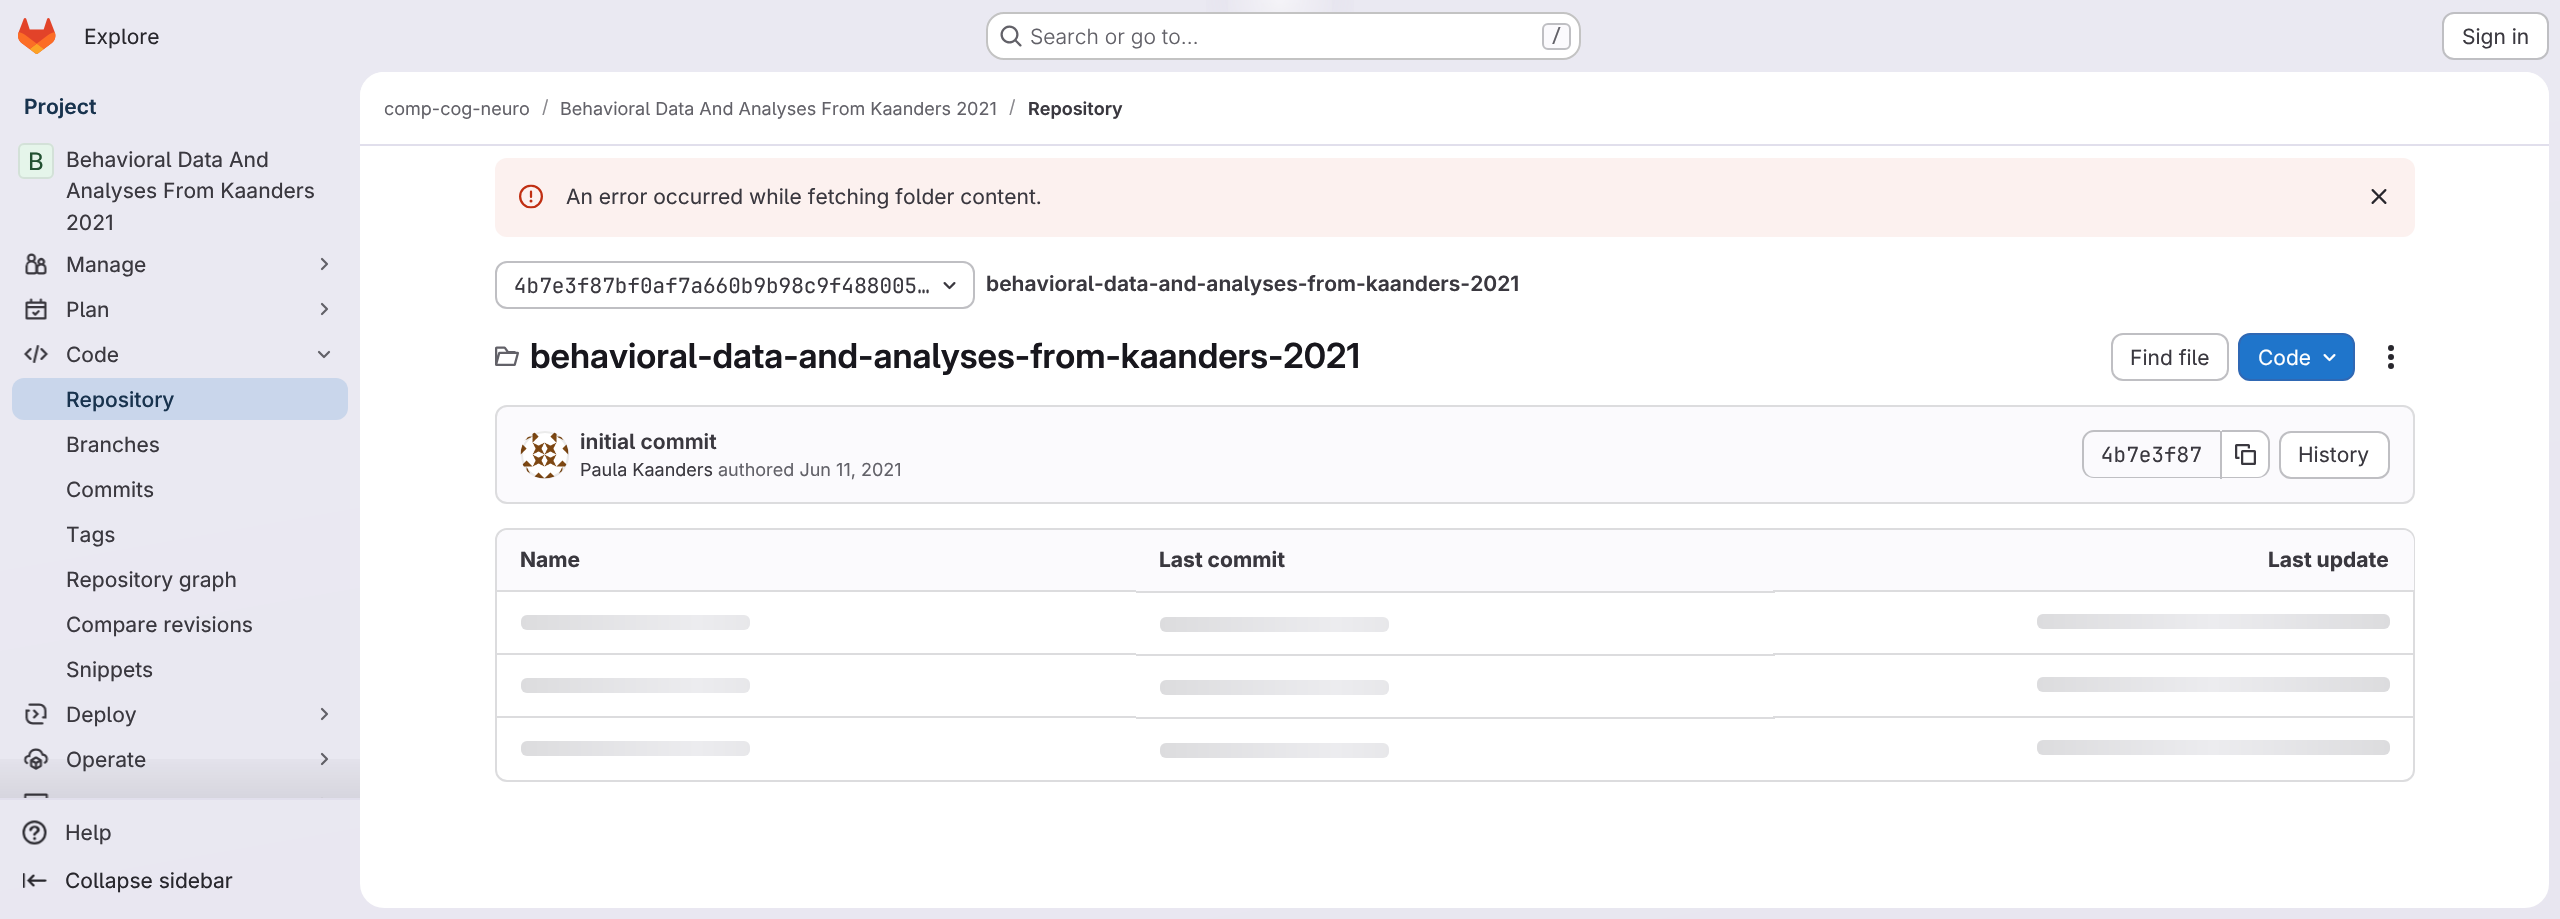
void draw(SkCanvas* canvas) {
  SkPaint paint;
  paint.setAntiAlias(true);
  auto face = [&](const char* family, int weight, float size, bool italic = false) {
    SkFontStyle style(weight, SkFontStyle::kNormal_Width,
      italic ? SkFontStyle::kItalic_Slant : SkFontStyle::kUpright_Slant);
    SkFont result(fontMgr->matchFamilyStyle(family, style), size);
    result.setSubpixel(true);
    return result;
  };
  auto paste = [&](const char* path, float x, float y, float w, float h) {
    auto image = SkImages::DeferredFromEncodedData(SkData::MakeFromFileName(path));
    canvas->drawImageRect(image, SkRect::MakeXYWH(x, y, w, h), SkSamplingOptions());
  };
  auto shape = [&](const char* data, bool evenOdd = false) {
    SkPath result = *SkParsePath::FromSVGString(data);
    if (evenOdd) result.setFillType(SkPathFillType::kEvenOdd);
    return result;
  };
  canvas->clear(0xffffffff);
  {
    const SkColor colors[] = {0xffe8e6f0, 0xffeae9f2};
    const float stops[] = {0, 0.7f};
    const SkPoint ends[] = {{1397, 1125}, {1163, -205}};
    paint.setShader(SkGradientShader::MakeLinear(ends, colors, stops, 2, SkTileMode::kClamp));
    paint.setAlpha(255);
  }
  canvas->drawRect(SkRect::MakeXYWH(0, 0, 2560, 919), paint);
  {
    const SkColor colors[] = {0xffe4e2ed, 0x00e4e2ed};
    const float stops[] = {0, 0.08f};
    SkMatrix m = SkMatrix::Translate(1280, 0).preScale(1280, 920);
    paint.setShader(SkGradientShader::MakeRadial({0, 0}, 1, colors, stops, 2, SkTileMode::kClamp, 0, &m));
    paint.setAlpha(255);
  }
  canvas->drawRect(SkRect::MakeXYWH(1206, 0, 148, 53), paint);
  {
    const SkColor colors[] = {0xffe4e2ec, 0x00e4e2ec};
    const float stops[] = {0, 0.06f};
    SkMatrix m = SkMatrix::Translate(1280, 0).preScale(1280, 920);
    paint.setShader(SkGradientShader::MakeRadial({0, 0}, 1, colors, stops, 2, SkTileMode::kClamp, 0, &m));
    paint.setAlpha(255);
  }
  canvas->drawRect(SkRect::MakeXYWH(1261, 3, 39, 9), paint);
  {
    const SkColor colors[] = {0x99ffffff, 0x00ffffff};
    const float stops[] = {0, 0.04f};
    paint.setShader(SkGradientShader::MakeRadial({1280, 0}, 1576, colors, stops, 2, SkTileMode::kClamp));
    paint.setAlpha(255);
  }
  canvas->drawRect(SkRect::MakeXYWH(1228, 0, 104, 52), paint);
  paste("img/1.png", 18, 18, 38, 36);
  paint.setShader(nullptr);
  paint.setColor(0xffffffff);
  canvas->drawRoundRect(SkRect::MakeXYWH(986, 12, 595, 48), 18, 18, paint);
  paint.setStroke(true);
  paint.setStrokeWidth(2);
  paint.setColor(0x3d050506);
  canvas->drawRoundRect(SkRect::MakeXYWH(987, 13, 593, 46), 17, 17, paint);
  paste("img/2.png", 1000, 25, 22, 22);
  paint.setStroke(false);
  paint.setColor(0xfffbfafd);
  canvas->drawRoundRect(SkRect::MakeXYWH(1543, 24, 27, 25), 5, 5, paint);
  paint.setStroke(true);
  paint.setColor(0xffbfbfc3);
  canvas->drawRoundRect(SkRect::MakeXYWH(1543, 24, 27, 25), 5, 5, paint);
  paint.setStroke(false);
  paint.setColor(0xffffffff);
  canvas->drawRoundRect(SkRect::MakeXYWH(2443, 13, 105, 46), 11, 11, paint);
  paint.setStroke(true);
  paint.setColor(0xffbfbfc3);
  canvas->drawRoundRect(SkRect::MakeXYWH(2443, 13, 105, 46), 11, 11, paint);
  paint.setStroke(false);
  paint.setColor(0xffe1dfec);
  canvas->drawRect(SkRect::MakeXYWH(0, 798, 360, 2), paint);
  paint.setColor(0xffffffff);
  canvas->drawRoundRect(SkRect::MakeXYWH(18, 143, 36, 36), 6, 6, paint);
  paint.setColor(0x3d91d4a8);
  canvas->drawRoundRect(SkRect::MakeXYWH(18, 143, 36, 36), 6, 6, paint);
  paint.setStroke(true);
  paint.setColor(0xffd3e1d8);
  canvas->drawRoundRect(SkRect::MakeXYWH(19, 144, 34, 34), 5, 5, paint);
  paste("img/3.png", 25, 253, 22, 22);
  paint.setStrokeWidth(2.2f);
  paint.setStrokeCap(SkPaint::kRound_Cap);
  paint.setStrokeJoin(SkPaint::kRound_Join);
  paint.setColor(0xff626168);
  canvas->drawPath(shape("M322 259L327 264L322 269"), paint);
  paste("img/4.png", 25, 298, 22, 22);
  canvas->drawPath(shape("M322 304L327 309L322 314"), paint);
  paste("img/5.png", 23, 345, 26, 18);
  canvas->drawPath(shape("M329 352L324 357L319 352"), paint);
  paint.setStroke(false);
  paint.setColor(0xffc9d6eb);
  canvas->drawRoundRect(SkRect::MakeXYWH(12, 378, 336, 42), 12, 12, paint);
  paste("img/6.png", 25, 703, 22, 22);
  paint.setStroke(true);
  paint.setColor(0xff626168);
  canvas->drawPath(shape("M322 709L327 714L322 719"), paint);
  paste("img/7.png", 23, 748, 26, 22);
  canvas->drawPath(shape("M322 754L327 759L322 764"), paint);
  paste("img/8.png", 23, 793, 26, 5);
  canvas->save();
  canvas->clipRect(SkRect::MakeXYWH(312, 792, 24, 6));
  canvas->drawPath(shape("M322 799L327 804L322 809"), paint);
  canvas->restore();
  paint.setStroke(false);
  {
    const SkColor colors[] = {0x00050506, 0x14050506};
    const float stops[] = {0, 1};
    const SkPoint ends[] = {{180, 744}, {180, 798}};
    paint.setShader(SkGradientShader::MakeLinear(ends, colors, stops, 2, SkTileMode::kClamp));
    paint.setAlpha(255);
  }
  canvas->drawRect(SkRect::MakeXYWH(0, 759, 360, 39), paint);
  paste("img/9.png", 22, 820, 25, 25);
  paste("img/10.png", 23, 873, 24, 15);
  paint.setShader(nullptr);
  paint.setColor(0xffffffff);
  canvas->drawRoundRect(SkRect::MakeXYWH(360, 72, 2189, 836), 24, 24, paint);
  canvas->drawPath(shape("M384 72H2525C2538.5 72 2549 82.5 2549 96V146H360V96C360 82.5 370.5 72 384 72Z"), paint);
  paint.setColor(0xffe1dfec);
  canvas->drawRect(SkRect::MakeXYWH(360, 144, 2189, 2), paint);
  paint.setColor(0xfffcf1ef);
  canvas->drawRoundRect(SkRect::MakeXYWH(495, 158, 1920, 79), 12, 12, paint);
  paste("img/11.png", 519, 184, 24, 25);
  paste("img/12.png", 2371, 189, 16, 15);
  paint.setStroke(true);
  paint.setStrokeWidth(2);
  paint.setStrokeCap(SkPaint::kButt_Cap);
  paint.setStrokeJoin(SkPaint::kMiter_Join);
  paint.setColor(0xffbfbfc3);
  canvas->drawRoundRect(SkRect::MakeXYWH(496, 262, 478, 46), 11, 11, paint);
  paste("img/13.png", 943, 282, 13, 8);
  paste("img/14.png", 495, 346, 24, 20);
  canvas->drawRoundRect(SkRect::MakeXYWH(2112, 334, 116, 46), 11, 11, paint);
  paint.setStroke(false);
  paint.setColor(0xff1f75cb);
  canvas->drawRoundRect(SkRect::MakeXYWH(2239, 334, 115, 46), 11, 11, paint);
  paint.setStroke(true);
  paint.setColor(0xff2f68b4);
  canvas->drawRoundRect(SkRect::MakeXYWH(2239, 334, 115, 46), 11, 11, paint);
  paste("img/15.png", 2323, 354, 13, 8);
  paste("img/16.png", 2388, 345, 6, 24);
  paint.setStroke(false);
  paint.setColor(0xfffbfafd);
  canvas->drawRoundRect(SkRect::MakeXYWH(496, 406, 1918, 97), 11, 11, paint);
  paint.setStroke(true);
  paint.setColor(0xffdcdcde);
  canvas->drawRoundRect(SkRect::MakeXYWH(496, 406, 1918, 97), 11, 11, paint);
  paste("img/17.png", 520, 431, 49, 48);
  paint.setColor(0x14050506);
  canvas->drawCircle(545, 455, 23, paint);
  paint.setStroke(false);
  paint.setColor(0xffbfbfc3);
  canvas->drawPath(shape("M2094 430H2220V478H2094C2087 478 2082 473 2082 466V442C2082 436 2087 430 2094 430ZM2094 432H2220V477H2094C2088 477 2084 472 2084 466V442C2084 437 2088 432 2094 432Z", true), paint);
  paint.setColor(0xffffffff);
  canvas->drawPath(shape("M2222 432H2257C2263 432 2268 437 2268 443V466C2268 472 2263 477 2257 477H2222Z"), paint);
  paint.setColor(0xffbfbfc3);
  canvas->drawPath(shape("M2222 430H2258C2264 430 2270 436 2270 442V466C2270 473 2264 478 2258 478H2222ZM2222 432H2258C2263 432 2268 437 2268 442V466C2268 472 2263 477 2258 477H2222Z", true), paint);
  canvas->drawRect(SkRect::MakeXYWH(2220, 431, 2, 48), paint);
  paste("img/18.png", 2235, 444, 21, 21);
  paint.setColor(0xffffffff);
  canvas->drawRoundRect(SkRect::MakeXYWH(2280, 432, 109, 46), 11, 11, paint);
  paint.setStroke(true);
  paint.setColor(0xffbfbfc3);
  canvas->drawRoundRect(SkRect::MakeXYWH(2280, 432, 109, 46), 11, 11, paint);
  paint.setColor(0xffdcdcde);
  canvas->drawRoundRect(SkRect::MakeXYWH(496, 529, 1918, 252), 11, 11, paint);
  paint.setStroke(false);
  paint.setColor(0xfffbfafd);
  canvas->drawPath(shape("M508 530H1136V591H497V541C497 535 502 530 508 530Z"), paint);
  canvas->drawRect(SkRect::MakeXYWH(1136, 530, 639, 61), paint);
  canvas->drawPath(shape("M1775 530H2403C2409 530 2414 535 2414 541V591H1775Z"), paint);
  paint.setColor(0xffdcdcde);
  canvas->drawRect(SkRect::MakeXYWH(497, 590, 639, 2), paint);
  {
    const SkColor colors[] = {0xffdcdcde, 0xffececef, 0xffdcdcde};
    const float stops[] = {0, 0.5f, 1};
    const SkPoint ends[] = {{521, 615}, {873, 615}};
    paint.setShader(SkGradientShader::MakeLinear(ends, colors, stops, 3, SkTileMode::kClamp));
    paint.setAlpha(255);
  }
  canvas->drawRoundRect(SkRect::MakeXYWH(521, 615, 229, 15), 6, 6, paint);
  paint.setShader(nullptr);
  paint.setColor(0xffdcdcde);
  canvas->drawRect(SkRect::MakeXYWH(1136, 591, 639, 2), paint);
  {
    const SkColor colors[] = {0xffdcdcde, 0xffececef, 0xffdcdcde};
    const float stops[] = {0, 0.5f, 1};
    const SkPoint ends[] = {{1160, 617}, {1512, 617}};
    paint.setShader(SkGradientShader::MakeLinear(ends, colors, stops, 3, SkTileMode::kClamp));
    paint.setAlpha(255);
  }
  canvas->drawRoundRect(SkRect::MakeXYWH(1160, 617, 229, 15), 6, 6, paint);
  paint.setShader(nullptr);
  paint.setColor(0xffdcdcde);
  canvas->drawRect(SkRect::MakeXYWH(1773, 590, 641, 2), paint);
  {
    const SkColor colors[] = {0xffdcdcde, 0xffececef, 0xffdcdcde};
    const float stops[] = {0, 0.5f, 1};
    const SkPoint ends[] = {{2037, 614}, {2390, 614}};
    paint.setShader(SkGradientShader::MakeLinear(ends, colors, stops, 3, SkTileMode::kClamp));
    paint.setAlpha(255);
  }
  canvas->drawRoundRect(SkRect::MakeXYWH(2037, 614, 353, 15), 6, 6, paint);
  paint.setShader(nullptr);
  paint.setColor(0xffdcdcde);
  canvas->drawRect(SkRect::MakeXYWH(497, 653, 639, 2), paint);
  {
    const SkColor colors[] = {0xffdcdcde, 0xffececef, 0xffdcdcde};
    const float stops[] = {0, 0.5f, 1};
    const SkPoint ends[] = {{521, 678}, {873, 678}};
    paint.setShader(SkGradientShader::MakeLinear(ends, colors, stops, 3, SkTileMode::kClamp));
    paint.setAlpha(255);
  }
  canvas->drawRoundRect(SkRect::MakeXYWH(521, 678, 229, 15), 6, 6, paint);
  paint.setShader(nullptr);
  paint.setColor(0xffdcdcde);
  canvas->drawRect(SkRect::MakeXYWH(1136, 654, 639, 2), paint);
  {
    const SkColor colors[] = {0xffdcdcde, 0xffececef, 0xffdcdcde};
    const float stops[] = {0, 0.5f, 1};
    const SkPoint ends[] = {{1160, 680}, {1512, 680}};
    paint.setShader(SkGradientShader::MakeLinear(ends, colors, stops, 3, SkTileMode::kClamp));
    paint.setAlpha(255);
  }
  canvas->drawRoundRect(SkRect::MakeXYWH(1160, 680, 229, 15), 6, 6, paint);
  paint.setShader(nullptr);
  paint.setColor(0xffdcdcde);
  canvas->drawRect(SkRect::MakeXYWH(1773, 653, 641, 2), paint);
  {
    const SkColor colors[] = {0xffdcdcde, 0xffececef, 0xffdcdcde};
    const float stops[] = {0, 0.5f, 1};
    const SkPoint ends[] = {{2037, 677}, {2390, 677}};
    paint.setShader(SkGradientShader::MakeLinear(ends, colors, stops, 3, SkTileMode::kClamp));
    paint.setAlpha(255);
  }
  canvas->drawRoundRect(SkRect::MakeXYWH(2037, 677, 353, 15), 6, 6, paint);
  paint.setShader(nullptr);
  paint.setColor(0xffdcdcde);
  canvas->drawRect(SkRect::MakeXYWH(497, 716, 639, 2), paint);
  {
    const SkColor colors[] = {0xffdcdcde, 0xffececef, 0xffdcdcde};
    const float stops[] = {0, 0.5f, 1};
    const SkPoint ends[] = {{521, 741}, {873, 741}};
    paint.setShader(SkGradientShader::MakeLinear(ends, colors, stops, 3, SkTileMode::kClamp));
    paint.setAlpha(255);
  }
  canvas->drawRoundRect(SkRect::MakeXYWH(521, 741, 229, 15), 6, 6, paint);
  paint.setShader(nullptr);
  paint.setColor(0xffdcdcde);
  canvas->drawRect(SkRect::MakeXYWH(1136, 717, 639, 2), paint);
  {
    const SkColor colors[] = {0xffdcdcde, 0xffececef, 0xffdcdcde};
    const float stops[] = {0, 0.5f, 1};
    const SkPoint ends[] = {{1160, 743}, {1512, 743}};
    paint.setShader(SkGradientShader::MakeLinear(ends, colors, stops, 3, SkTileMode::kClamp));
    paint.setAlpha(255);
  }
  canvas->drawRoundRect(SkRect::MakeXYWH(1160, 743, 229, 15), 6, 6, paint);
  paint.setShader(nullptr);
  paint.setColor(0xffdcdcde);
  canvas->drawRect(SkRect::MakeXYWH(1773, 716, 641, 2), paint);
  {
    const SkColor colors[] = {0xffdcdcde, 0xffececef, 0xffdcdcde};
    const float stops[] = {0, 0.5f, 1};
    const SkPoint ends[] = {{2037, 740}, {2390, 740}};
    paint.setShader(SkGradientShader::MakeLinear(ends, colors, stops, 3, SkTileMode::kClamp));
    paint.setAlpha(255);
  }
  canvas->drawRoundRect(SkRect::MakeXYWH(2037, 740, 353, 15), 6, 6, paint);
  auto f0 = face("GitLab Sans", 400, 21);
  paint.setShader(nullptr);
  paint.setColor(0xff28272d);
  canvas->drawString("Explore", 84, 44, f0, paint);
  auto f1 = face("GitLab Sans", 300, 21);
  paint.setColor(0xff626168);
  canvas->drawString("Search or go to…", 1030, 44, f1, paint);
  auto f2 = face("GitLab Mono", 500, 18);
  canvas->drawString("/", 1551, 42, f2, paint);
  paint.setColor(0xff3a383f);
  canvas->drawString("Sign in", 2462, 44, f0, paint);
  auto f3 = face("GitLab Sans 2", 600, 21);
  paint.setColor(0xff18334e);
  canvas->drawString("Project", 24, 114, f3, paint);
  auto f4 = face("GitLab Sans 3", 400, 24);
  paint.setColor(0xff225131);
  canvas->drawString("B", 28, 170, f4, paint);
  auto f5 = face("GitLab Sans 2", 400, 21);
  paint.setColor(0xff3a383f);
  {
    const struct { const char* s; float x, y; } items[] = {
      {"Behavioral Data And", 66, 167},
      {"Analyses From Kaanders", 66, 198},
      {"2021", 66, 230},
      {"Manage", 66, 272},
      {"Plan", 66, 317},
      {"Code", 66, 362},
    };
    for (auto [s, x, y] : items) {
      canvas->drawString(s, x, y, f5, paint);
    }
  }
  auto f6 = face("GitLab Sans", 500, 21);
  paint.setColor(0xff18334e);
  canvas->drawString("Repository", 66, 407, f6, paint);
  paint.setColor(0xff3a383f);
  {
    const struct { const char* s; float x, y; } items[] = {
      {"Branches", 66, 452},
      {"Commits", 66, 497},
      {"Tags", 66, 542},
      {"Repository graph", 66, 587},
      {"Compare revisions", 66, 632},
      {"Snippets", 66, 677},
      {"Deploy", 66, 722},
      {"Operate", 66, 767},
      {"Help", 65, 840},
    };
    for (auto [s, x, y] : items) {
      canvas->drawString(s, x, y, f5, paint);
    }
  }
  paint.setColor(0xff28272d);
  canvas->drawString("Collapse sidebar", 65, 888, f5, paint);
  auto f7 = face("GitLab Sans", 400, 18);
  paint.setColor(0xff626168);
  canvas->drawString("comp-cog-neuro", 384, 115, f7, paint);
  paint.setColor(0xff89888d);
  canvas->drawString("/", 542, 113, f7, paint);
  paint.setColor(0xff626168);
  canvas->drawString("Behavioral Data And Analyses From Kaanders 2021", 560, 115, f7, paint);
  paint.setColor(0xff89888d);
  canvas->drawString("/", 1009, 113, f7, paint);
  auto f8 = face("GitLab Sans 2", 600, 18);
  paint.setColor(0xff3a383f);
  canvas->drawString("Repository", 1028, 115, f8, paint);
  canvas->drawString("An error occurred while fetching folder content.", 566, 204, f0, paint);
  auto f9 = face("GitLab Mono", 400, 21);
  canvas->drawString("4b7e3f87bf0af7a660b9b98c9f488005…", 514, 293, f9, paint);
  canvas->drawString("behavioral-data-and-analyses-from-kaanders-2021", 986, 291, f3, paint);
  auto f10 = face("GitLab Sans", 600, 34.5f);
  paint.setColor(0xff18171d);
  canvas->drawString("behavioral-data-and-analyses-from-kaanders-2021", 530, 368, f10, paint);
  paint.setColor(0xff3a383f);
  canvas->drawString("Find file", 2130, 365, f0, paint);
  paint.setColor(0xffffffff);
  canvas->drawString("Code", 2258, 365, f0, paint);
  paint.setColor(0xff3a383f);
  canvas->drawString("initial commit", 580, 449, f3, paint);
  canvas->drawString("Paula Kaanders", 580, 476, f7, paint);
  paint.setColor(0xff626168);
  canvas->drawString("authored Jun 11, 2021", 718, 476, f7, paint);
  paint.setColor(0xff3a383f);
  canvas->drawString("4b7e3f87", 2101, 462, f9, paint);
  canvas->drawString("History", 2298, 462, f0, paint);
  auto f11 = face("GitLab Sans", 700, 21);
  {
    const struct { const char* s; float x, y; } items[] = {
      {"Name", 520, 567},
      {"Last commit", 1159, 567},
      {"Last update", 2268, 567},
    };
    for (auto [s, x, y] : items) {
      canvas->drawString(s, x, y, f11, paint);
    }
  }
}
